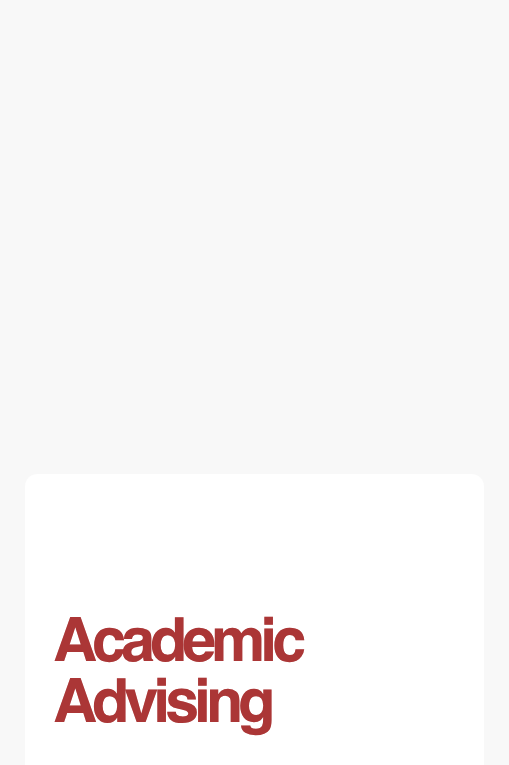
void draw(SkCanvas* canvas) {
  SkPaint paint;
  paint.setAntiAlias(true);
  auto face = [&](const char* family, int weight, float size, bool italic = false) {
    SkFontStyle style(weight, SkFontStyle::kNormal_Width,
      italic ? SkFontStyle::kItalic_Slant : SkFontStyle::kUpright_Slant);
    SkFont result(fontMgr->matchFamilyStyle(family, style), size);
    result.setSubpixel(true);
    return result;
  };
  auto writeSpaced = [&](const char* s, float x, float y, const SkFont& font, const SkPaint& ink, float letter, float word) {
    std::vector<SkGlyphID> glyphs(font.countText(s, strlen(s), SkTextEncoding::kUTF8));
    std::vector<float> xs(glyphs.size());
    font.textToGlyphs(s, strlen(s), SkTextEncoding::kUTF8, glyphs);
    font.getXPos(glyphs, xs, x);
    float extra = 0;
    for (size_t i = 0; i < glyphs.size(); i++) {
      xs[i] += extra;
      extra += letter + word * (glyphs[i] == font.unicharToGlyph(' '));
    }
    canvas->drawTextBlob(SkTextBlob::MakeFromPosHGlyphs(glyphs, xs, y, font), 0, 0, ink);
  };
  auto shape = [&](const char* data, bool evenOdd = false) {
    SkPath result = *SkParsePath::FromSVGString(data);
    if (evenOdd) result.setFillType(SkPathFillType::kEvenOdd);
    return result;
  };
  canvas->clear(0xfff8f8f8);
  paint.setColor(0xffffffff);
  canvas->drawPath(shape("M37 474H472C478.5 474 484 479.5 484 486V765H25V486C25 479.5 30.5 474 37 474Z"), paint);
  auto f0 = face("Helvetica", 700, 61);
  paint.setColor(0xffab3636);
  writeSpaced("Academic", 53, 661, f0, paint, -5, 0);
  writeSpaced("Advising", 53, 722, f0, paint, -5, 0);
}
